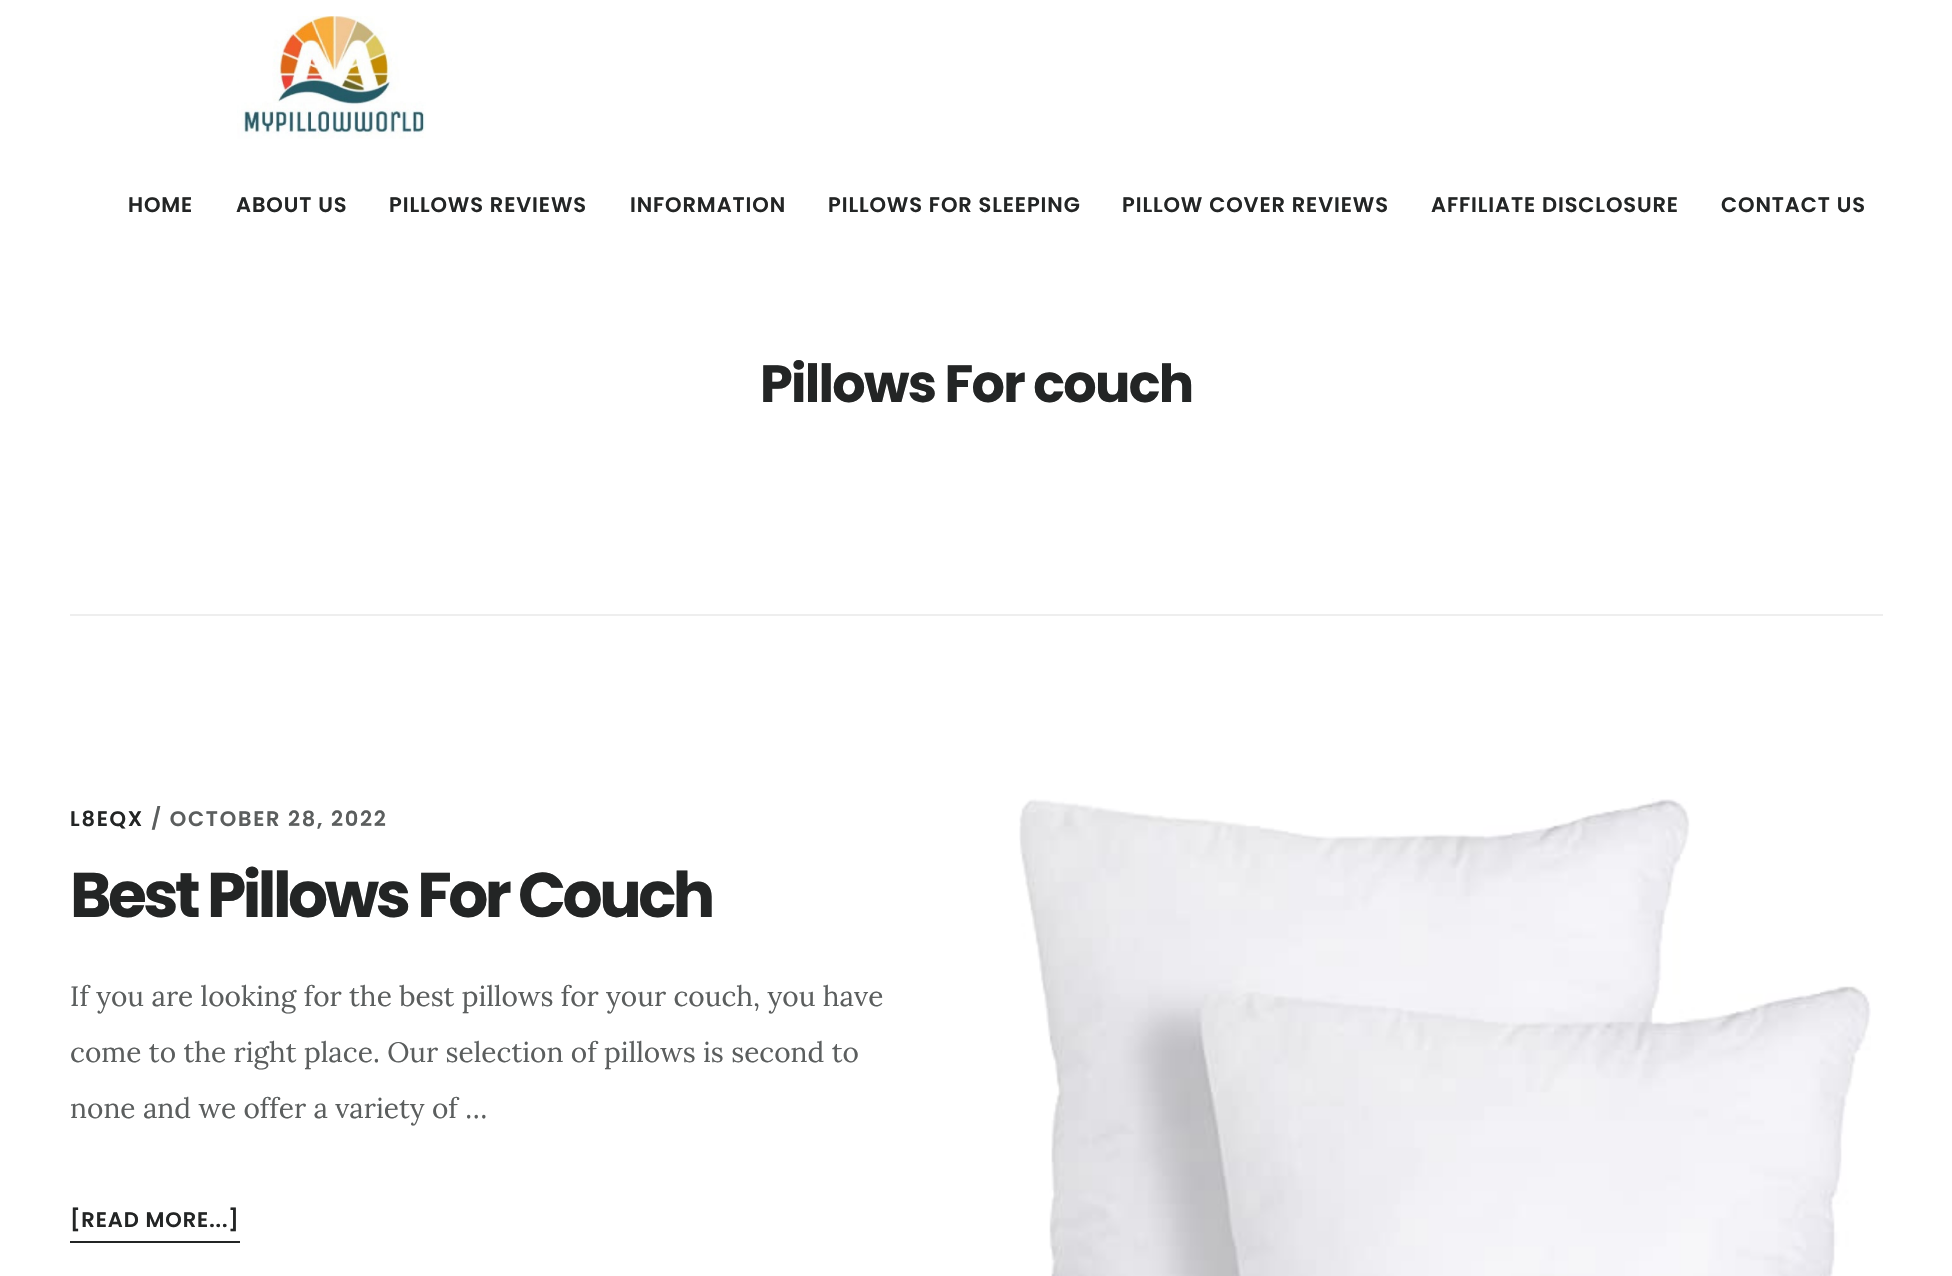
void draw(SkCanvas* canvas) {
  SkPaint paint;
  paint.setAntiAlias(true);
  auto face = [&](const char* family, int weight, float size, bool italic = false) {
    SkFontStyle style(weight, SkFontStyle::kNormal_Width,
      italic ? SkFontStyle::kItalic_Slant : SkFontStyle::kUpright_Slant);
    SkFont result(fontMgr->matchFamilyStyle(family, style), size);
    result.setSubpixel(true);
    return result;
  };
  auto writeSpaced = [&](const char* s, float x, float y, const SkFont& font, const SkPaint& ink, float letter, float word) {
    std::vector<SkGlyphID> glyphs(font.countText(s, strlen(s), SkTextEncoding::kUTF8));
    std::vector<float> xs(glyphs.size());
    font.textToGlyphs(s, strlen(s), SkTextEncoding::kUTF8, glyphs);
    font.getXPos(glyphs, xs, x);
    float extra = 0;
    for (size_t i = 0; i < glyphs.size(); i++) {
      xs[i] += extra;
      extra += letter + word * (glyphs[i] == font.unicharToGlyph(' '));
    }
    canvas->drawTextBlob(SkTextBlob::MakeFromPosHGlyphs(glyphs, xs, y, font), 0, 0, ink);
  };
  auto paste = [&](const char* path, float x, float y, float w, float h) {
    auto image = SkImages::DeferredFromEncodedData(SkData::MakeFromFileName(path));
    canvas->drawImageRect(image, SkRect::MakeXYWH(x, y, w, h), SkSamplingOptions());
  };
  canvas->clear(0xffffffff);
  paste("img/1.png", 237, 16, 189, 123);
  paint.setColor(0xffeeeeee);
  canvas->drawRect(SkRect::MakeXYWH(70, 614, 1813, 2), paint);
  paste("img/2.png", 1019, 798, 852, 478);
  paint.setColor(0xff232525);
  canvas->drawRect(SkRect::MakeXYWH(70, 1241, 170, 2), paint);
  auto f0 = face("Poppins", 600, 21);
  {
    const struct { const char* s; float x, y; } items[] = {
      {"HOME", 128, 212},
      {"ABOUT US", 236, 212},
      {"PILLOWS REVIEWS", 389, 212},
      {"INFORMATION", 630, 212},
      {"PILLOWS FOR SLEEPING", 828, 212},
      {"PILLOW COVER REVIEWS", 1122, 212},
      {"AFFILIATE DISCLOSURE", 1431, 212},
      {"CONTACT US", 1721, 212},
    };
    for (auto [s, x, y] : items) {
      writeSpaced(s, x, y, f0, paint, 0.9f, 0);
    }
  }
  auto f1 = face("Poppins", 700, 52.5f);
  writeSpaced("Pillows For couch", 760, 402, f1, paint, -1.75f, 0);
  writeSpaced("L8EQX", 70, 826, f0, paint, 1.75f, 0);
  paint.setColor(0xff5b5e5e);
  writeSpaced("/ OCTOBER 28, 2022", 151, 826, f0, paint, 1.75f, 0);
  auto f2 = face("Poppins", 700, 63);
  paint.setColor(0xff232525);
  writeSpaced("Best Pillows For Couch", 70, 917, f2, paint, -3.5f, 0);
  auto f3 = face("Lora", 400, 28);
  paint.setColor(0xff5b5e5e);
  {
    const struct { const char* s; float x, y; } items[] = {
      {"If you are looking for the best pillows for your couch, you have", 70, 1006},
      {"come to the right place. Our selection of pillows is second to", 70, 1062},
      {"none and we offer a variety of …", 70, 1118},
    };
    for (auto [s, x, y] : items) {
      canvas->drawString(s, x, y, f3, paint);
    }
  }
  paint.setColor(0xff232525);
  writeSpaced("[READ MORE...]", 70, 1227, f0, paint, 0.9f, 0);
}
